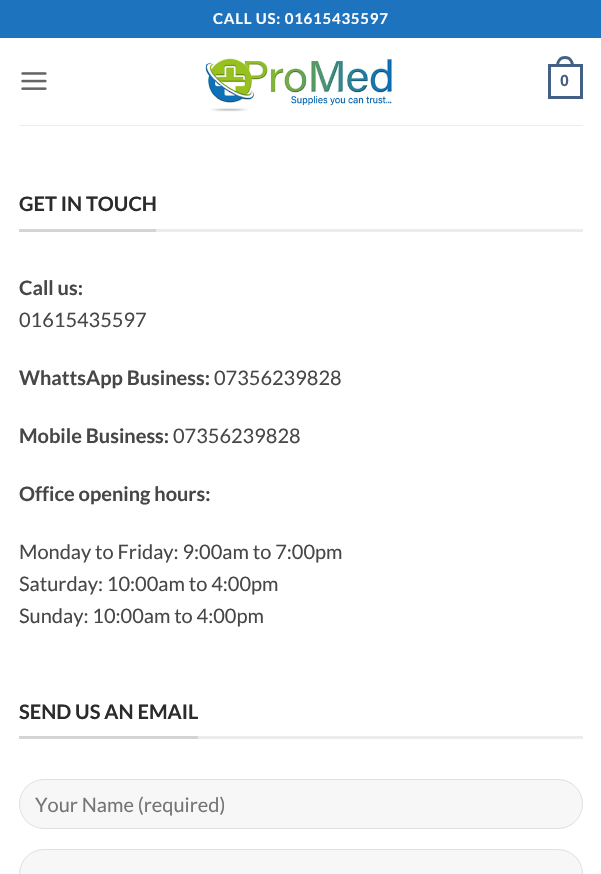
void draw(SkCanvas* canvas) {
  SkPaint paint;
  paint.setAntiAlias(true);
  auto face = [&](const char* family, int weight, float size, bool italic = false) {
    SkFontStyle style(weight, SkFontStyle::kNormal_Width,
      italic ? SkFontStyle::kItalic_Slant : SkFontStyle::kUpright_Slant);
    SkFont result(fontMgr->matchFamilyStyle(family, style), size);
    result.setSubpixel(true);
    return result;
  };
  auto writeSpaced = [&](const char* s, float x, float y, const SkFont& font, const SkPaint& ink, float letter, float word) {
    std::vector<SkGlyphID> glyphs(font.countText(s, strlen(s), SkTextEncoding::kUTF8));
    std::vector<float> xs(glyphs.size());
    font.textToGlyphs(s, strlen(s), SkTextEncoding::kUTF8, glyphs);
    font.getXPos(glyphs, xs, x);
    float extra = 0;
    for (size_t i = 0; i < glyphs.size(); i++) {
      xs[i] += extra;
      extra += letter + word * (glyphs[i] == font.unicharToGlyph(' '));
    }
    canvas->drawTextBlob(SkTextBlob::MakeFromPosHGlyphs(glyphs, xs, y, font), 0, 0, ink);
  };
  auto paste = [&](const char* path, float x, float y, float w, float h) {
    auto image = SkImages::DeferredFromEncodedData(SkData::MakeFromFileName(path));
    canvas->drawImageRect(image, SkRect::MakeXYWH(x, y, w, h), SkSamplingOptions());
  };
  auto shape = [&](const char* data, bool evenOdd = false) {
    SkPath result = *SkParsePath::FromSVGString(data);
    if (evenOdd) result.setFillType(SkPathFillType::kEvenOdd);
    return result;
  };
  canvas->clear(0xffffffff);
  paint.setColor(0xff1e73be);
  canvas->drawRect(SkRect::MakeXYWH(0, 0, 601, 38), paint);
  paste("img/1.png", 21, 72, 26, 18);
  paste("img/2.png", 205, 58, 187, 54);
  paint.setStroke(true);
  paint.setStrokeWidth(3);
  paint.setColor(0xff446084);
  canvas->drawRect(SkRect::MakeXYWH(549.5f, 65.5f, 32, 32), paint);
  paint.setStroke(false);
  canvas->drawPath(shape("M565 56C571 56 574 61 574 66H556C556 61 559 56 565 56ZM565 59C569.5 59 571 62.5 571 66H559C559 62.5 560.5 59 565 59Z", true), paint);
  {
    const struct { float x, y, w, h; SkColor color; } items[] = {
      {19, 125, 564, 1, 0xffededed},
      {156, 229, 427, 3, 0xffececec},
      {19, 229, 137, 3, 0xffd4d4d4},
      {198, 736, 385, 3, 0xffececec},
      {19, 736, 179, 3, 0xffd4d4d4},
    };
    for (auto [x, y, w, h, color] : items) {
      paint.setColor(color);
      canvas->drawRect(SkRect::MakeXYWH(x, y, w, h), paint);
    }
  }
  paint.setColor(0xfff7f7f7);
  canvas->drawRoundRect(SkRect::MakeXYWH(19, 779, 564, 50), 25, 25, paint);
  paint.setStroke(true);
  paint.setStrokeWidth(1);
  paint.setColor(0x17000000);
  canvas->drawRoundRect(SkRect::MakeXYWH(19.5f, 779.5f, 563, 49), 24.5f, 24.5f, paint);
  paint.setStroke(false);
  paint.setColor(0xfff7f7f7);
  canvas->drawRoundRect(SkRect::MakeXYWH(19, 849, 564, 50), 25, 25, paint);
  paint.setStroke(true);
  paint.setColor(0x17000000);
  canvas->drawRoundRect(SkRect::MakeXYWH(19.5f, 849.5f, 563, 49), 24.5f, 24.5f, paint);
  auto f0 = face("Lato", 700, 15);
  paint.setStroke(false);
  paint.setColor(0xffffffff);
  writeSpaced("CALL US: 01615435597", 213, 24, f0, paint, 0.75f, 0);
  auto f1 = face("Liberation Sans", 700, 16);
  paint.setColor(0xff446084);
  canvas->drawString("0", 560, 86, f1, paint);
  auto f2 = face("Lato", 700, 20);
  paint.setColor(0xff2b2b2b);
  canvas->drawString("GET IN TOUCH", 19, 211, f2, paint);
  paint.setColor(0xff474747);
  canvas->drawString("Call us:", 19, 295, f2, paint);
  auto f3 = face("Lato", 400, 20);
  canvas->drawString("01615435597", 19, 327, f3, paint);
  canvas->drawString("WhattsApp Business:", 19, 385, f2, paint);
  canvas->drawString("07356239828", 214, 385, f3, paint);
  canvas->drawString("Mobile Business:", 19, 443, f2, paint);
  canvas->drawString("07356239828", 173, 443, f3, paint);
  canvas->drawString("Office opening hours:", 19, 501, f2, paint);
  {
    const struct { const char* s; float x, y; } items[] = {
      {"Monday to Friday: 9:00am to 7:00pm", 19, 559},
      {"Saturday: 10:00am to 4:00pm", 19, 591},
      {"Sunday: 10:00am to 4:00pm", 19, 623},
    };
    for (auto [s, x, y] : items) {
      canvas->drawString(s, x, y, f3, paint);
    }
  }
  paint.setColor(0xff2b2b2b);
  canvas->drawString("SEND US AN EMAIL", 19, 719, f2, paint);
  paint.setColor(0xff757575);
  canvas->drawString("Your Name (required)", 35, 812, f3, paint);
}
